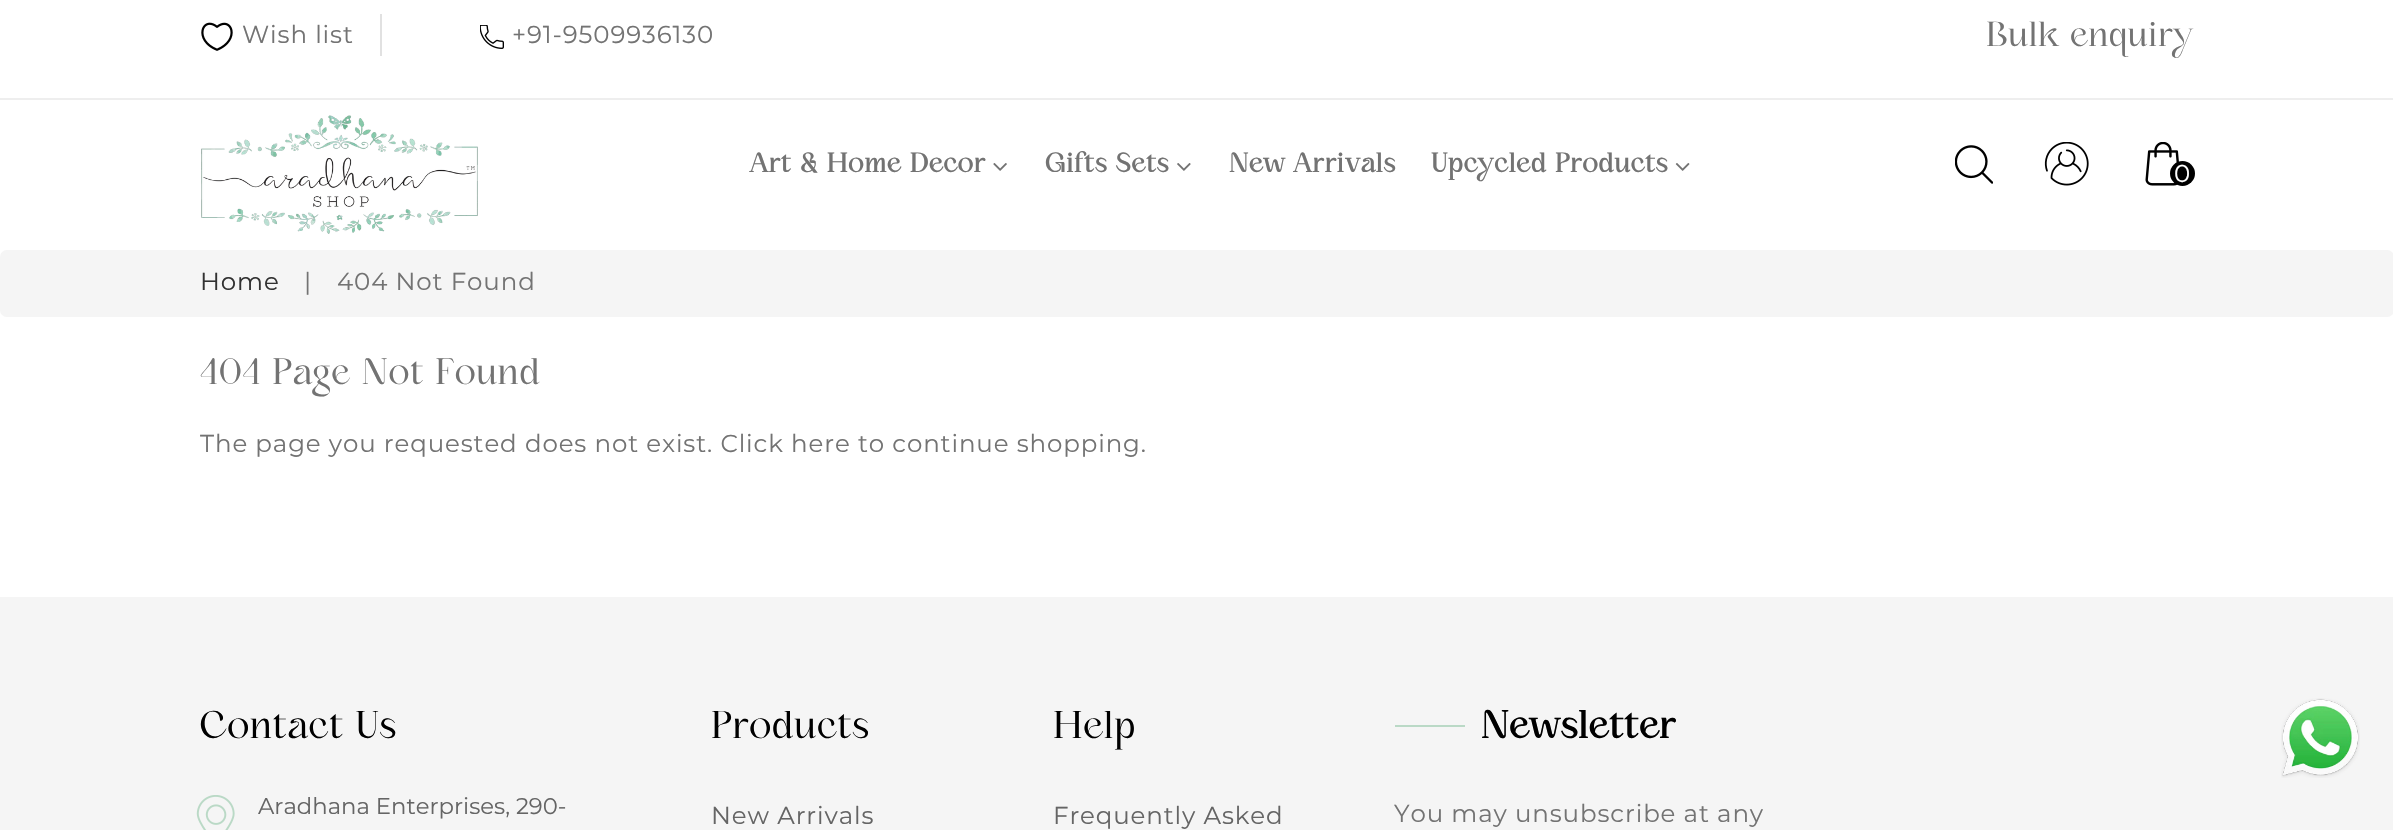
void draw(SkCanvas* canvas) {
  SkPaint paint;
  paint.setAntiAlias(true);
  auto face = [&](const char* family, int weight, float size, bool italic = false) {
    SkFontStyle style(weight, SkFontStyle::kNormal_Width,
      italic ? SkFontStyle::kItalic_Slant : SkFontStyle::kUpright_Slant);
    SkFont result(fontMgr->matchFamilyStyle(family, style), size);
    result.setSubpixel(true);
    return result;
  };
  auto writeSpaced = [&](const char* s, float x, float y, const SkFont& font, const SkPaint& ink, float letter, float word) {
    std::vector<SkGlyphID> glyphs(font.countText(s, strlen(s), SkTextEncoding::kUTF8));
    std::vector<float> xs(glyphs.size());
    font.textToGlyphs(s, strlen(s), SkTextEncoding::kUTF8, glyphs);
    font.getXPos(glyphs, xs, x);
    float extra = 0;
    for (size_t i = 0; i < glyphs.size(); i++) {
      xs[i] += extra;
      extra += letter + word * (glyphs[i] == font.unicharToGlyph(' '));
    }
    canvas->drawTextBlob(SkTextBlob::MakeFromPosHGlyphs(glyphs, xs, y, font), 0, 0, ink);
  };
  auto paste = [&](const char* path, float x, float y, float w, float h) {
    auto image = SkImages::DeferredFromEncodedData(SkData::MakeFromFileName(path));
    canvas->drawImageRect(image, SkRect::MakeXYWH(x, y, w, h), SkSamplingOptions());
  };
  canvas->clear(0xffffffff);
  paint.setColor(0xffeeeeee);
  canvas->drawRect(SkRect::MakeXYWH(0, 98, 2393, 2), paint);
  paint.setColor(0xffe1e1e1);
  canvas->drawRect(SkRect::MakeXYWH(380, 14, 2, 42), paint);
  paste("img/1.png", 201, 22, 32, 29);
  paste("img/2.png", 480, 25, 24, 24);
  paste("img/3.png", 201, 115, 277, 119);
  paste("img/4.png", 993, 163, 14, 8);
  paste("img/5.png", 1177, 163, 14, 8);
  paste("img/6.png", 1675, 163, 15, 8);
  paste("img/7.png", 1955, 145, 38, 39);
  paste("img/8.png", 2044, 142, 45, 44);
  paste("img/9.png", 2145, 142, 34, 44);
  paint.setColor(0xff000000);
  canvas->drawCircle(2182.5f, 173.5f, 12.5f, paint);
  paint.setColor(0xfff5f5f5);
  canvas->drawRoundRect(SkRect::MakeXYWH(0, 250, 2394, 67), 7, 7, paint);
  canvas->drawRect(SkRect::MakeXYWH(0, 597, 2393, 233), paint);
  paste("img/10.png", 196, 795, 39, 35);
  paint.setColor(0xffbad9c6);
  canvas->drawRect(SkRect::MakeXYWH(1395, 725, 70, 2), paint);
  paste("img/11.png", 2281, 698, 79, 80);
  auto f0 = face("Montserrat", 400, 24.5f);
  paint.setColor(0xff737373);
  writeSpaced("Wish list", 242, 43, f0, paint, 0.88f, 0);
  writeSpaced("+91-9509936130", 512, 43, f0, paint, 0.88f, 0);
  auto f1 = face("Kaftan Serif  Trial", 400, 31.5f);
  writeSpaced("Bulk enquiry", 1986, 46, f1, paint, 0.88f, 0);
  auto f2 = face("Kaftan Serif  Trial", 700, 24.5f);
  {
    const struct { const char* s; float x, y; } items[] = {
      {"Art & Home Decor", 750, 172},
      {"Gifts Sets", 1045, 172},
      {"New Arrivals", 1229, 172},
      {"Upcycled Products", 1431, 172},
    };
    for (auto [s, x, y] : items) {
      writeSpaced(s, x, y, f2, paint, 0.88f, 0);
    }
  }
  paint.setColor(0xffffffff);
  writeSpaced("0", 2174, 182, f0, paint, 0.88f, 0);
  paint.setColor(0xff313131);
  writeSpaced("Home", 200, 290, f0, paint, 0.88f, 0);
  paint.setColor(0xff737373);
  writeSpaced("|", 304, 290, f0, paint, 0.88f, 0);
  writeSpaced("404 Not Found", 337, 290, f0, paint, 0.88f, 0);
  auto f3 = face("Kaftan Serif  Trial", 400, 33.25f);
  writeSpaced("404 Page Not Found", 200, 384, f3, paint, 0.88f, 0);
  writeSpaced("The page you requested does not exist. Click here to continue shopping.", 200, 452, f0, paint, 0.88f, 0);
  auto f4 = face("Kaftan Serif  Trial", 400, 35);
  paint.setColor(0xff000000);
  writeSpaced("Contact Us", 200, 738, f4, paint, 0.88f, 0);
  auto f5 = face("Montserrat", 400, 22.75f);
  paint.setColor(0xff656565);
  canvas->drawString("Aradhana Enterprises, 290-", 258, 814, f5, paint);
  paint.setColor(0xff000000);
  writeSpaced("Products", 711, 738, f4, paint, 0.88f, 0);
  paint.setColor(0xff656565);
  writeSpaced("New Arrivals", 711, 824, f0, paint, 0.88f, 0);
  paint.setColor(0xff000000);
  writeSpaced("Help", 1053, 738, f4, paint, 0.88f, 0);
  paint.setColor(0xff656565);
  writeSpaced("Frequently Asked", 1053, 824, f0, paint, 0.88f, 0);
  auto f6 = face("Kaftan Serif  Trial", 700, 35);
  paint.setColor(0xff000000);
  writeSpaced("Newsletter", 1481, 738, f6, paint, 0.88f, 0);
  paint.setColor(0xff737373);
  writeSpaced("You may unsubscribe at any", 1394, 822, f0, paint, 0.88f, 0);
}
